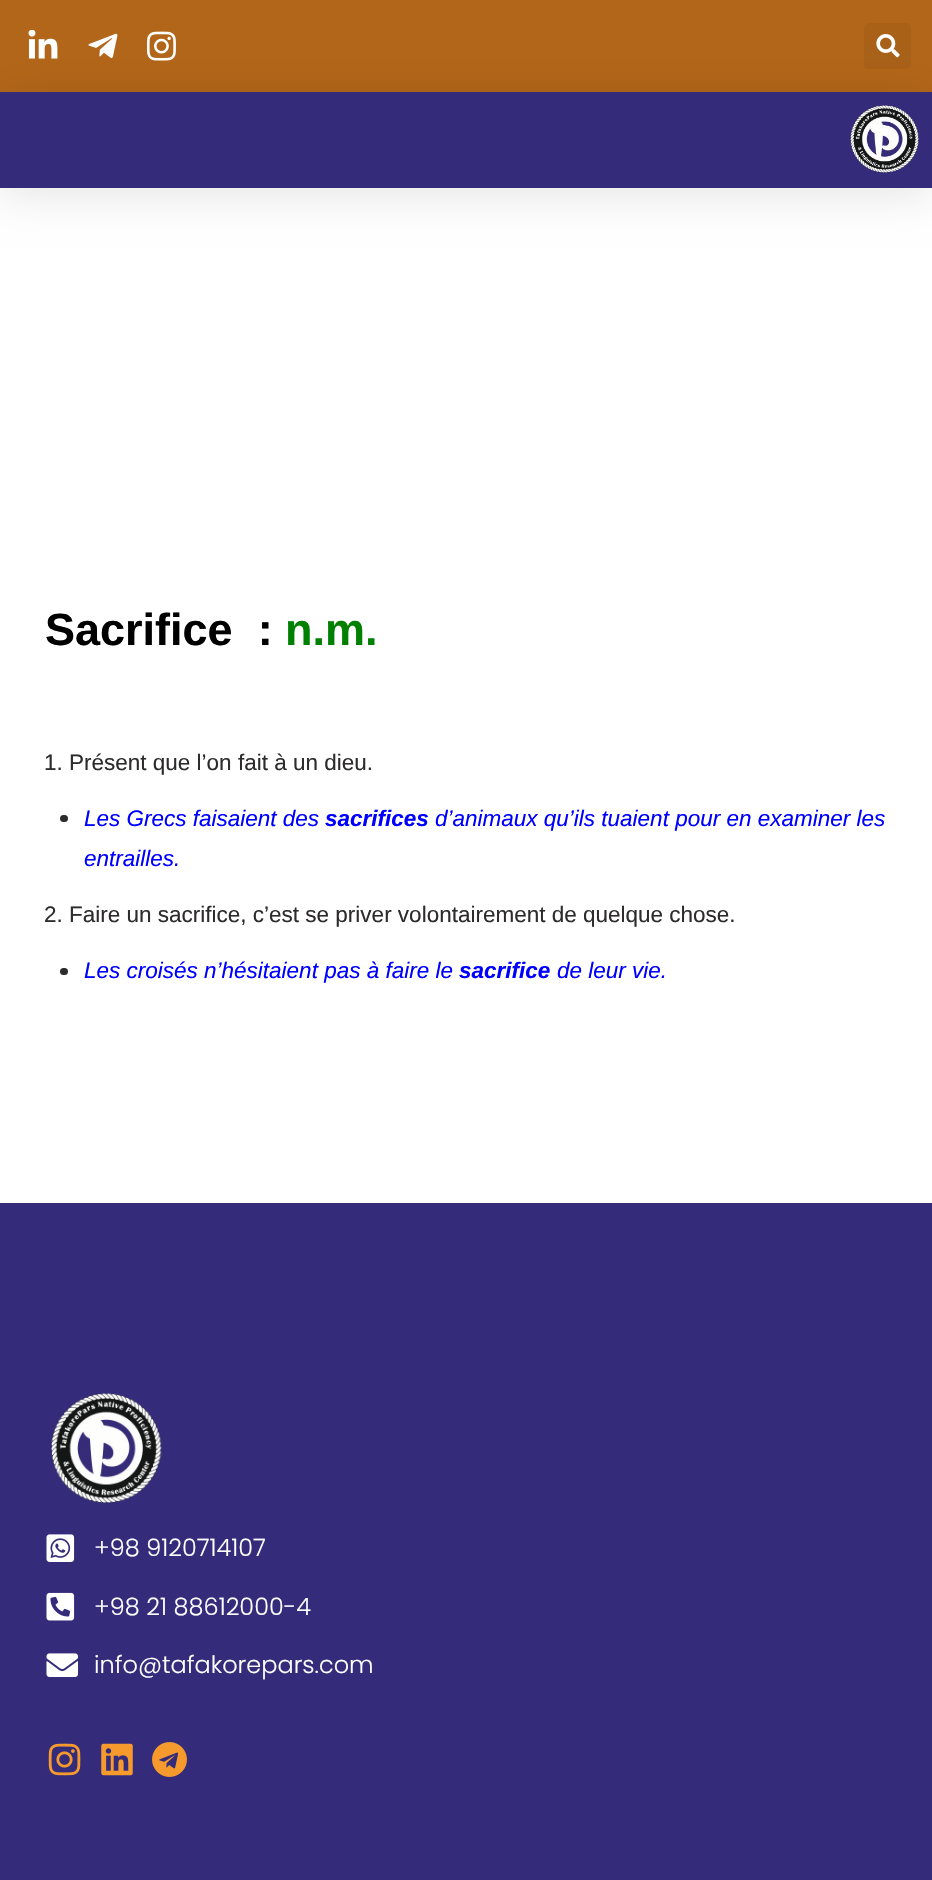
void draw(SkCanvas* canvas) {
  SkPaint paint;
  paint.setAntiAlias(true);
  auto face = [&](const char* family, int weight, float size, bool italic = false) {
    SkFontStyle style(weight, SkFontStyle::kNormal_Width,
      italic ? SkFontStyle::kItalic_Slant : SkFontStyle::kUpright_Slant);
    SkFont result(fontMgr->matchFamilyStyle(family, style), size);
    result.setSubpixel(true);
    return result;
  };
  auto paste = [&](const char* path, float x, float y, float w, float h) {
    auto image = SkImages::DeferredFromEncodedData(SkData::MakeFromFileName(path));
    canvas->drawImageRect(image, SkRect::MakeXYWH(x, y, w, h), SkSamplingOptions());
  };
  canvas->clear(0xffffffff);
  paint.setColor(0xffb26619);
  canvas->drawRect(SkRect::MakeXYWH(0, 0, 932, 92), paint);
  paste("img/1.png", 28, 30, 30, 29);
  paste("img/2.png", 88, 33, 30, 25);
  paste("img/3.png", 147, 31, 29, 30);
  paint.setColor(0xffa96118);
  canvas->drawRoundRect(SkRect::MakeXYWH(864, 23, 47, 46), 5, 5, paint);
  paste("img/4.png", 876, 34, 24, 24);
  paint.setColor(0x1a000000);
  paint.setMaskFilter(SkMaskFilter::MakeBlur(kNormal_SkBlurStyle, 22.5f));
  canvas->drawRect(SkRect::MakeXYWH(0, 99, 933, 96), paint);
  paint.setMaskFilter(nullptr);
  paint.setColor(0xff342c7a);
  canvas->drawRect(SkRect::MakeXYWH(0, 92, 932, 96), paint);
  paste("img/5.png", 850, 105, 69, 68);
  paint.setColor(0xff2d2b2b);
  canvas->drawRoundRect(SkRect::MakeXYWH(60, 815, 8, 7), 3.5f, 3.5f, paint);
  canvas->drawRoundRect(SkRect::MakeXYWH(60, 968, 8, 7), 3.5f, 3.5f, paint);
  paint.setColor(0xff342c7a);
  canvas->drawRect(SkRect::MakeXYWH(0, 1203, 932, 677), paint);
  paste("img/6.png", 51, 1393, 111, 110);
  paste("img/7.png", 46, 1534, 29, 28);
  paste("img/8.png", 46, 1592, 29, 29);
  paste("img/9.png", 46, 1653, 32, 24);
  paste("img/10.png", 48, 1743, 33, 33);
  paste("img/11.png", 101, 1743, 32, 33);
  paste("img/12.png", 152, 1742, 35, 35);
  auto f0 = face("Liberation Sans", 700, 45);
  paint.setColor(0xff000000);
  canvas->drawString("Sacrifice  :", 45, 645, f0, paint);
  paint.setColor(0xff008000);
  canvas->drawString("n.m.", 285, 645, f0, paint);
  auto f1 = face("Liberation Sans", 400, 22.5f);
  paint.setColor(0xff2d2b2b);
  canvas->drawString("1. Présent que l’on fait à un dieu.", 44, 770, f1, paint);
  auto f2 = face("Liberation Sans", 400, 22.5f, true);
  paint.setColor(0xff0000ff);
  canvas->drawString("Les Grecs faisaient des", 84, 826, f2, paint);
  auto f3 = face("Liberation Sans", 700, 22.5f, true);
  canvas->drawString("sacrifices", 325, 826, f3, paint);
  canvas->drawString("d’animaux qu’ils tuaient pour en examiner les", 435, 826, f2, paint);
  canvas->drawString("entrailles.", 84, 866, f2, paint);
  paint.setColor(0xff2d2b2b);
  canvas->drawString("2. Faire un sacrifice, c’est se priver volontairement de quelque chose.", 44, 922, f1, paint);
  paint.setColor(0xff0000ff);
  canvas->drawString("Les croisés n’hésitaient pas à faire le", 84, 978, f2, paint);
  canvas->drawString("sacrifice", 459, 978, f3, paint);
  canvas->drawString("de leur vie.", 557, 978, f2, paint);
  auto f4 = face("Poppins", 300, 24);
  paint.setColor(0xffffffff);
  {
    const struct { const char* s; float x, y; } items[] = {
      {"+98 9120714107", 94, 1556},
      {"+98 21 88612000-4", 94, 1615},
      {"info@tafakorepars.com", 94, 1673},
    };
    for (auto [s, x, y] : items) {
      canvas->drawString(s, x, y, f4, paint);
    }
  }
}
